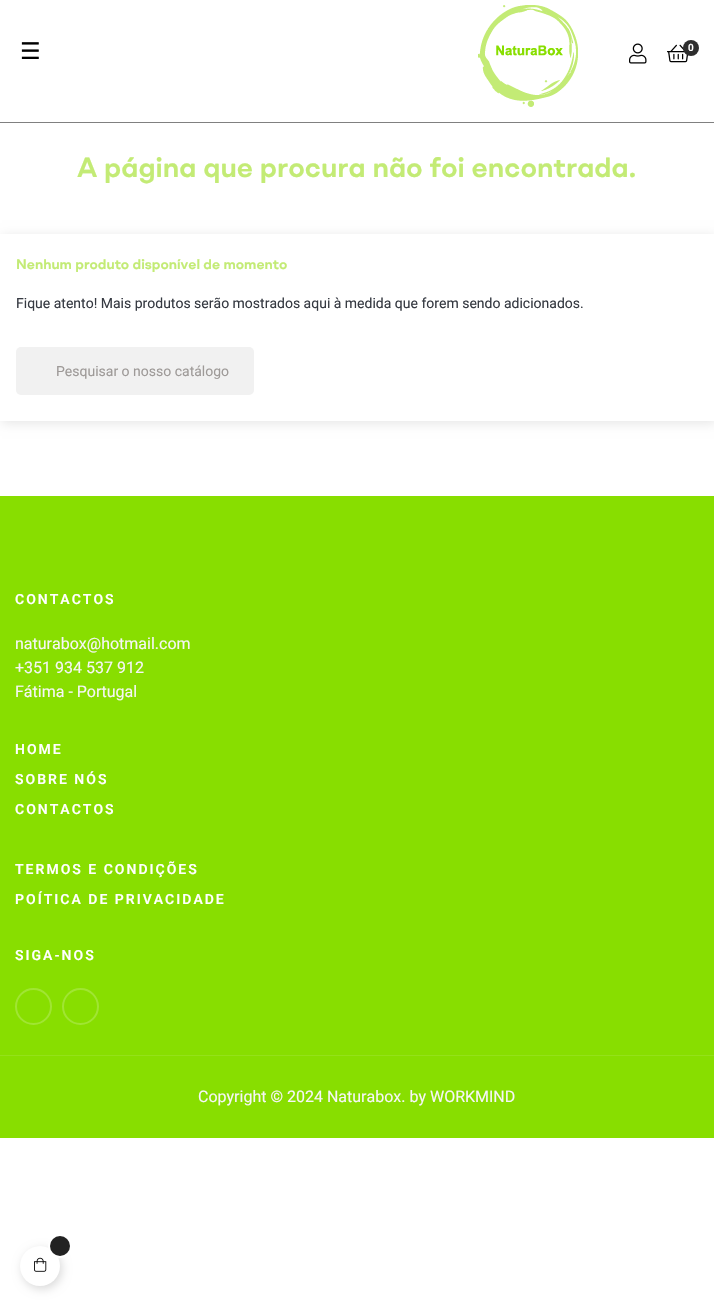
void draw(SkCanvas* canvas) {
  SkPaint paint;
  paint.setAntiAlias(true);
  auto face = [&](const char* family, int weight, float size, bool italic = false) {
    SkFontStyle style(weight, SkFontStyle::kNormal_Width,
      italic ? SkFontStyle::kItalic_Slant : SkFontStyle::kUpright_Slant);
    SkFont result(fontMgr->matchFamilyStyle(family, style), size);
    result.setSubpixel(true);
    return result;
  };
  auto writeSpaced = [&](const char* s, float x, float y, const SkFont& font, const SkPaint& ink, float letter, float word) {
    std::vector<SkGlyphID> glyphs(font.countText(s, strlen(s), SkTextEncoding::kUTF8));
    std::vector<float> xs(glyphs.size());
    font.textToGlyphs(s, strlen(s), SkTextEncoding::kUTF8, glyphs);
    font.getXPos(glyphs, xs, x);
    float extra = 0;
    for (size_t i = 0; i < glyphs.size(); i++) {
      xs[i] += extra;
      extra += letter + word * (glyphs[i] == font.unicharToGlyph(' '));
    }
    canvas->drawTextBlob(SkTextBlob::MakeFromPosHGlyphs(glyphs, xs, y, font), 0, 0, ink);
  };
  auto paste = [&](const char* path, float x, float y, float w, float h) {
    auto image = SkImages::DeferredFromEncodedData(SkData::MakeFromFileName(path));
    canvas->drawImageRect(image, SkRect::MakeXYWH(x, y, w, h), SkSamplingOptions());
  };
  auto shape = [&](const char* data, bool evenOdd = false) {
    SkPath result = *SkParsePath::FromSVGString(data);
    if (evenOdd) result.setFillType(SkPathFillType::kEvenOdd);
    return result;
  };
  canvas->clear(0xffffffff);
  paint.setColor(0xff808080);
  canvas->drawRect(SkRect::MakeXYWH(0, 122, 714, 1), paint);
  paste("img/1.png", 478, 5, 100, 102);
  paste("img/2.png", 629, 43, 18, 21);
  paste("img/3.png", 667, 44, 21, 19);
  paint.setColor(0xff2d2d2d);
  canvas->drawCircle(691, 48, 8, paint);
  canvas->save();
  canvas->clipPath(shape("M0 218H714V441H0ZM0 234H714V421H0Z", true), true);
  paint.setColor(0x1a000000);
  paint.setMaskFilter(SkMaskFilter::MakeBlur(kNormal_SkBlurStyle, 5.5f));
  canvas->drawRect(SkRect::MakeXYWH(2, 236, 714, 187), paint);
  paint.setMaskFilter(nullptr);
  canvas->restore();
  paint.setColor(0xfff1f1f1);
  canvas->drawRoundRect(SkRect::MakeXYWH(16, 347, 238, 48), 5, 5, paint);
  paint.setColor(0xff88de00);
  canvas->drawRect(SkRect::MakeXYWH(0, 496, 714, 559), paint);
  paint.setStroke(true);
  paint.setStrokeWidth(2);
  paint.setColor(0xffa0e533);
  canvas->drawCircle(33.5f, 1006.5f, 17.5f, paint);
  canvas->drawCircle(80.5f, 1006.5f, 17.5f, paint);
  paint.setStroke(false);
  paint.setColor(0xff88de00);
  canvas->drawRect(SkRect::MakeXYWH(0, 1056, 714, 82), paint);
  paint.setColor(0xff94e11a);
  canvas->drawRect(SkRect::MakeXYWH(0, 1055, 714, 1), paint);
  paint.setColor(0x26000000);
  paint.setMaskFilter(SkMaskFilter::MakeBlur(kNormal_SkBlurStyle, 5));
  canvas->drawRoundRect(SkRect::MakeXYWH(22, 1249, 40, 40), 20, 20, paint);
  paint.setMaskFilter(nullptr);
  paint.setColor(0xffffffff);
  canvas->drawCircle(40, 1266, 20, paint);
  paste("img/4.png", 34, 1257, 13, 15);
  paint.setStroke(true);
  canvas->drawCircle(60, 1246, 11, paint);
  paint.setStroke(false);
  paint.setColor(0xff222222);
  canvas->drawCircle(60, 1246, 10, paint);
  auto f0 = face("DejaVu Sans", 400, 23);
  paint.setColor(0xff000000);
  canvas->drawString("☰", 20, 59, f0, paint);
  auto f1 = face("Roboto", 600, 10);
  paint.setColor(0xffffffff);
  canvas->drawString("0", 688, 51, f1, paint);
  auto f2 = face("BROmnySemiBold", 600, 28);
  paint.setColor(0xffc3eb75);
  canvas->drawString("A página que procura não foi encontrada.", 77, 177, f2, paint);
  auto f3 = face("BROmnySemiBold", 600, 14);
  canvas->drawString("Nenhum produto disponível de momento", 16, 269, f3, paint);
  auto f4 = face("Roboto", 400, 14);
  paint.setColor(0xff363a42);
  canvas->drawString("Fique atento! Mais produtos serão mostrados aqui à medida que forem sendo adicionados.", 16, 308, f4, paint);
  paint.setColor(0xff9e9a98);
  canvas->drawString("Pesquisar o nosso catálogo", 56, 376, f4, paint);
  auto f5 = face("Roboto", 600, 14);
  paint.setColor(0xffffffff);
  writeSpaced("CONTACTOS", 15, 604, f5, paint, 2, 0);
  auto f6 = face("Roboto", 400, 16);
  paint.setColor(0xfff6f6f6);
  {
    const struct { const char* s; float x, y; } items[] = {
      {"naturabox@hotmail.com", 15, 649},
      {"+351 934 537 912", 15, 673},
      {"Fátima - Portugal", 15, 697},
    };
    for (auto [s, x, y] : items) {
      canvas->drawString(s, x, y, f6, paint);
    }
  }
  paint.setColor(0xffffffff);
  {
    const struct { const char* s; float x, y; } items[] = {
      {"HOME", 15, 754},
      {"SOBRE NÓS", 15, 784},
      {"CONTACTOS", 15, 814},
      {"TERMOS E CONDIÇÕES", 15, 874},
      {"POÍTICA DE PRIVACIDADE", 15, 904},
      {"SIGA-NOS", 15, 960},
    };
    for (auto [s, x, y] : items) {
      writeSpaced(s, x, y, f5, paint, 2, 0);
    }
  }
  paint.setColor(0xfff6f6f6);
  canvas->drawString("Copyright © 2024 Naturabox. by WORKMIND", 198, 1102, f6, paint);
}
